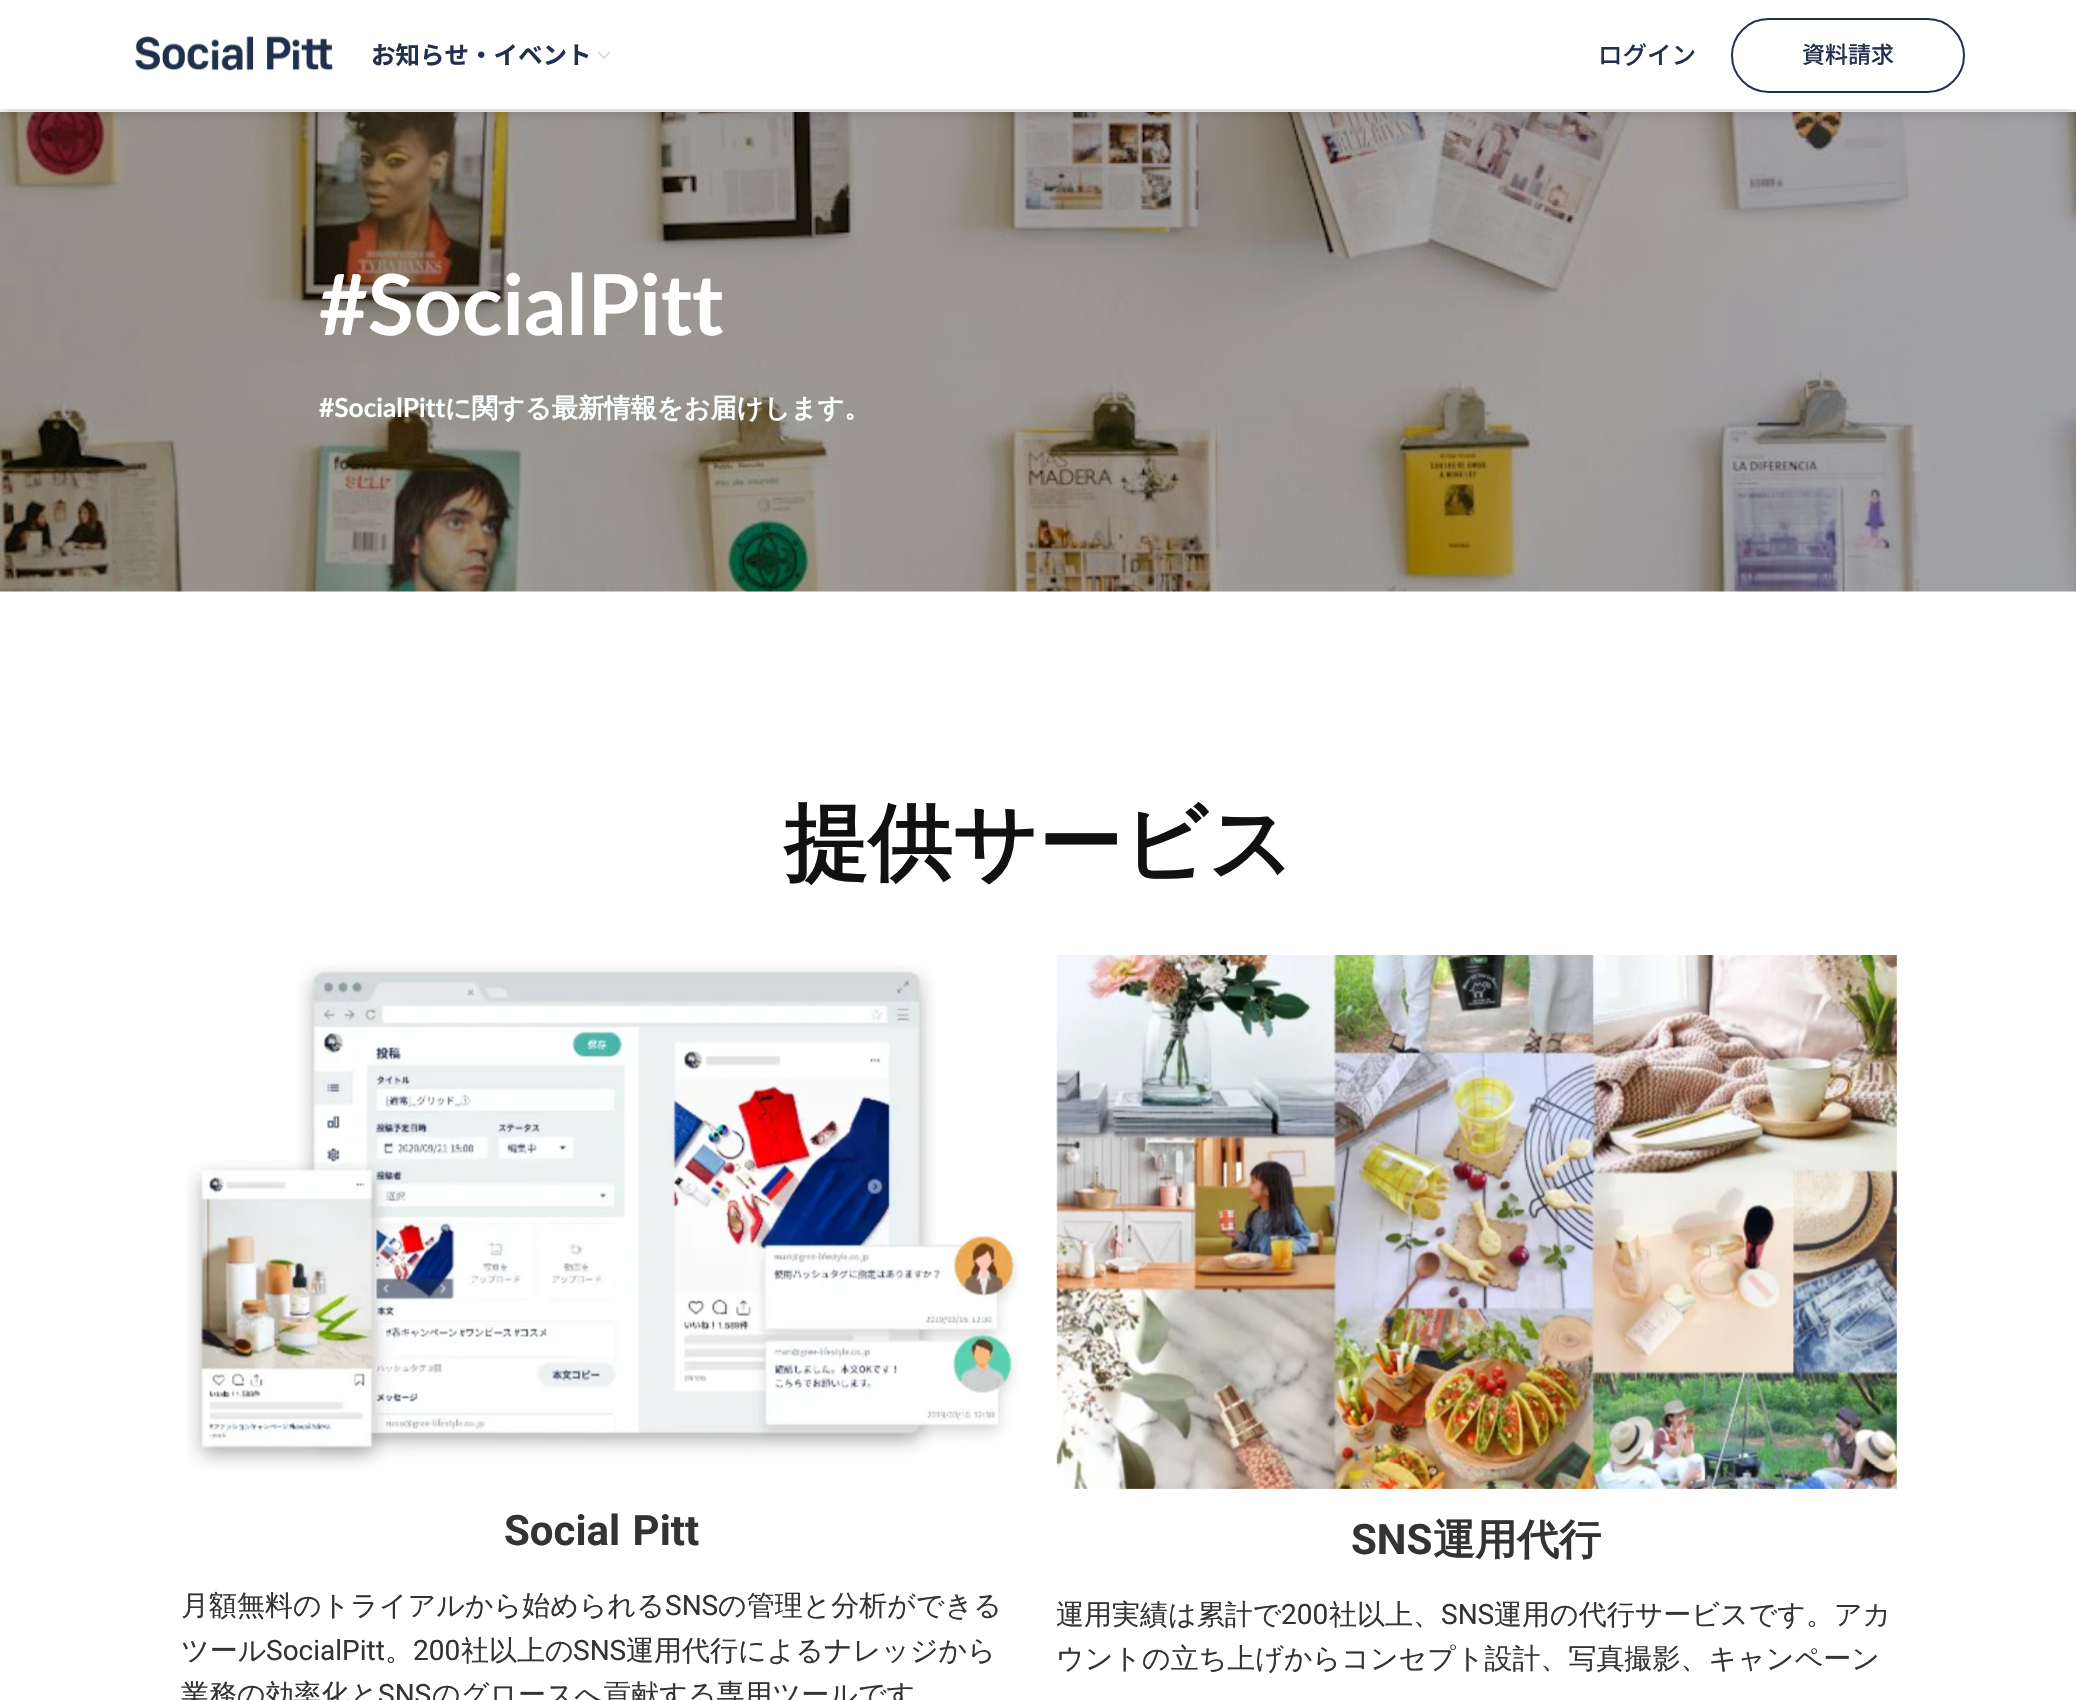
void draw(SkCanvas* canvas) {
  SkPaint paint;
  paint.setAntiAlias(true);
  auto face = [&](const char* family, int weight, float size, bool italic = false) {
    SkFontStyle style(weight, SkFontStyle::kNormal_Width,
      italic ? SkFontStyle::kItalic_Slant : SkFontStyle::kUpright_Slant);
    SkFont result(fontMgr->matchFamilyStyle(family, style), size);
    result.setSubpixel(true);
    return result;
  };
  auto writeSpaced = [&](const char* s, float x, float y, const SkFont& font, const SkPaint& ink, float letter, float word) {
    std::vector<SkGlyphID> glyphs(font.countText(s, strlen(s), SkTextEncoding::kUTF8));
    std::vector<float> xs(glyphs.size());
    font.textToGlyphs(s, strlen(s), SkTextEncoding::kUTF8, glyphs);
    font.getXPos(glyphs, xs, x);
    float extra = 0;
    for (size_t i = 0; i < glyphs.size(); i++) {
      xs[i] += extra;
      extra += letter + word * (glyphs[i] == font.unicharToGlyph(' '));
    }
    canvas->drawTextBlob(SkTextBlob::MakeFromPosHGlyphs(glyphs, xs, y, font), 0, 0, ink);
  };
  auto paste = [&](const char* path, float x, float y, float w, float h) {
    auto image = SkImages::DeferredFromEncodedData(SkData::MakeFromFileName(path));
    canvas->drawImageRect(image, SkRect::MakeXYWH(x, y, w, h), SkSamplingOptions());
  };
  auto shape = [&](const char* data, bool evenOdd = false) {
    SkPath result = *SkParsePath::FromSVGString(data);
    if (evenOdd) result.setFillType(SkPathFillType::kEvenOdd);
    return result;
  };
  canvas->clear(0xffffffff);
  paste("img/2.png", 0, 112, 2076, 480);
  paint.setColor(0x33000000);
  paint.setMaskFilter(SkMaskFilter::MakeBlur(kNormal_SkBlurStyle, 6));
  canvas->drawRect(SkRect::MakeXYWH(0, 4, 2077, 108), paint);
  paint.setMaskFilter(nullptr);
  paint.setColor(0xffffffff);
  canvas->drawRect(SkRect::MakeXYWH(0, 0, 2076, 109), paint);
  paste("img/1.png", 135, 36, 198, 35);
  paint.setStroke(true);
  paint.setStrokeWidth(1.1f);
  paint.setColor(0xffbfccd9);
  canvas->drawPath(shape("M598 52L604 58L610 52"), paint);
  paint.setStrokeWidth(2);
  paint.setColor(0xff21304d);
  canvas->drawRoundRect(SkRect::MakeXYWH(1732, 19, 232, 73), 36.5f, 36.5f, paint);
  paste("img/3.png", 187, 964, 833, 505);
  paste("img/4.png", 1056, 955, 841, 534);
  auto f0 = face("Noto Sans JP", 700, 24.5f);
  paint.setStroke(false);
  canvas->drawString("お知らせ・イベント", 371, 64, f0, paint);
  auto f1 = face("Noto Sans JP", 500, 24.5f);
  canvas->drawString("ログイン", 1598, 64, f1, paint);
  auto f2 = face("Noto Sans JP", 500, 23);
  canvas->drawString("資料請求", 1802, 63, f2, paint);
  auto f3 = face("Lato", 700, 84);
  paint.setColor(0xffffffff);
  canvas->drawString("#SocialPitt", 319, 335, f3, paint);
  auto f4 = face("Lato", 700, 26.25f);
  paint.setColor(0xfff9ffff);
  canvas->drawString("#SocialPitt", 319, 417, f4, paint);
  auto f5 = face("WenQuanYi Zen Hei", 700, 26.25f);
  canvas->drawString("に関する最新情報をお届けします。", 445, 417, f5, paint);
  auto f6 = face("WenQuanYi Zen Hei", 700, 84);
  paint.setColor(0xff111111);
  canvas->drawString("提供サービス", 784, 872, f6, paint);
  auto f7 = face("Roboto", 700, 42);
  paint.setColor(0xff333333);
  writeSpaced("Social Pitt", 504, 1545, f7, paint, 0, 2);
  auto f8 = face("WenQuanYi Zen Hei", 500, 28);
  canvas->drawString("月額無料のトライアルから始められる", 181, 1615, f8, paint);
  auto f9 = face("Roboto", 400, 28);
  canvas->drawString("SNS", 665, 1615, f9, paint);
  canvas->drawString("の管理と分析ができる", 718, 1615, f8, paint);
  canvas->drawString("ツール", 181, 1660, f8, paint);
  canvas->drawString("SocialPitt", 266, 1660, f9, paint);
  canvas->drawString("。", 385, 1660, f8, paint);
  canvas->drawString("200", 413, 1660, f9, paint);
  canvas->drawString("社以上の", 461, 1660, f8, paint);
  canvas->drawString("SNS", 573, 1660, f9, paint);
  canvas->drawString("運用代行によるナレッジから", 626, 1660, f8, paint);
  canvas->drawString("業務の効率化と", 181, 1704, f8, paint);
  canvas->drawString("SNS", 378, 1704, f9, paint);
  canvas->drawString("のグロースへ貢献する専用ツールです", 432, 1704, f8, paint);
  canvas->drawString("SNS", 1351, 1554, f7, paint);
  auto f10 = face("WenQuanYi Zen Hei", 700, 42);
  canvas->drawString("運用代行", 1433, 1554, f10, paint);
  canvas->drawString("運用実績は累計で", 1056, 1624, f8, paint);
  canvas->drawString("200", 1281, 1624, f9, paint);
  canvas->drawString("社以上、", 1329, 1624, f8, paint);
  canvas->drawString("SNS", 1441, 1624, f9, paint);
  canvas->drawString("運用の代行サービスです。アカ", 1494, 1624, f8, paint);
  canvas->drawString("ウントの立ち上げからコンセプト設計、写真撮影、キャンペーン", 1056, 1668, f8, paint);
}
